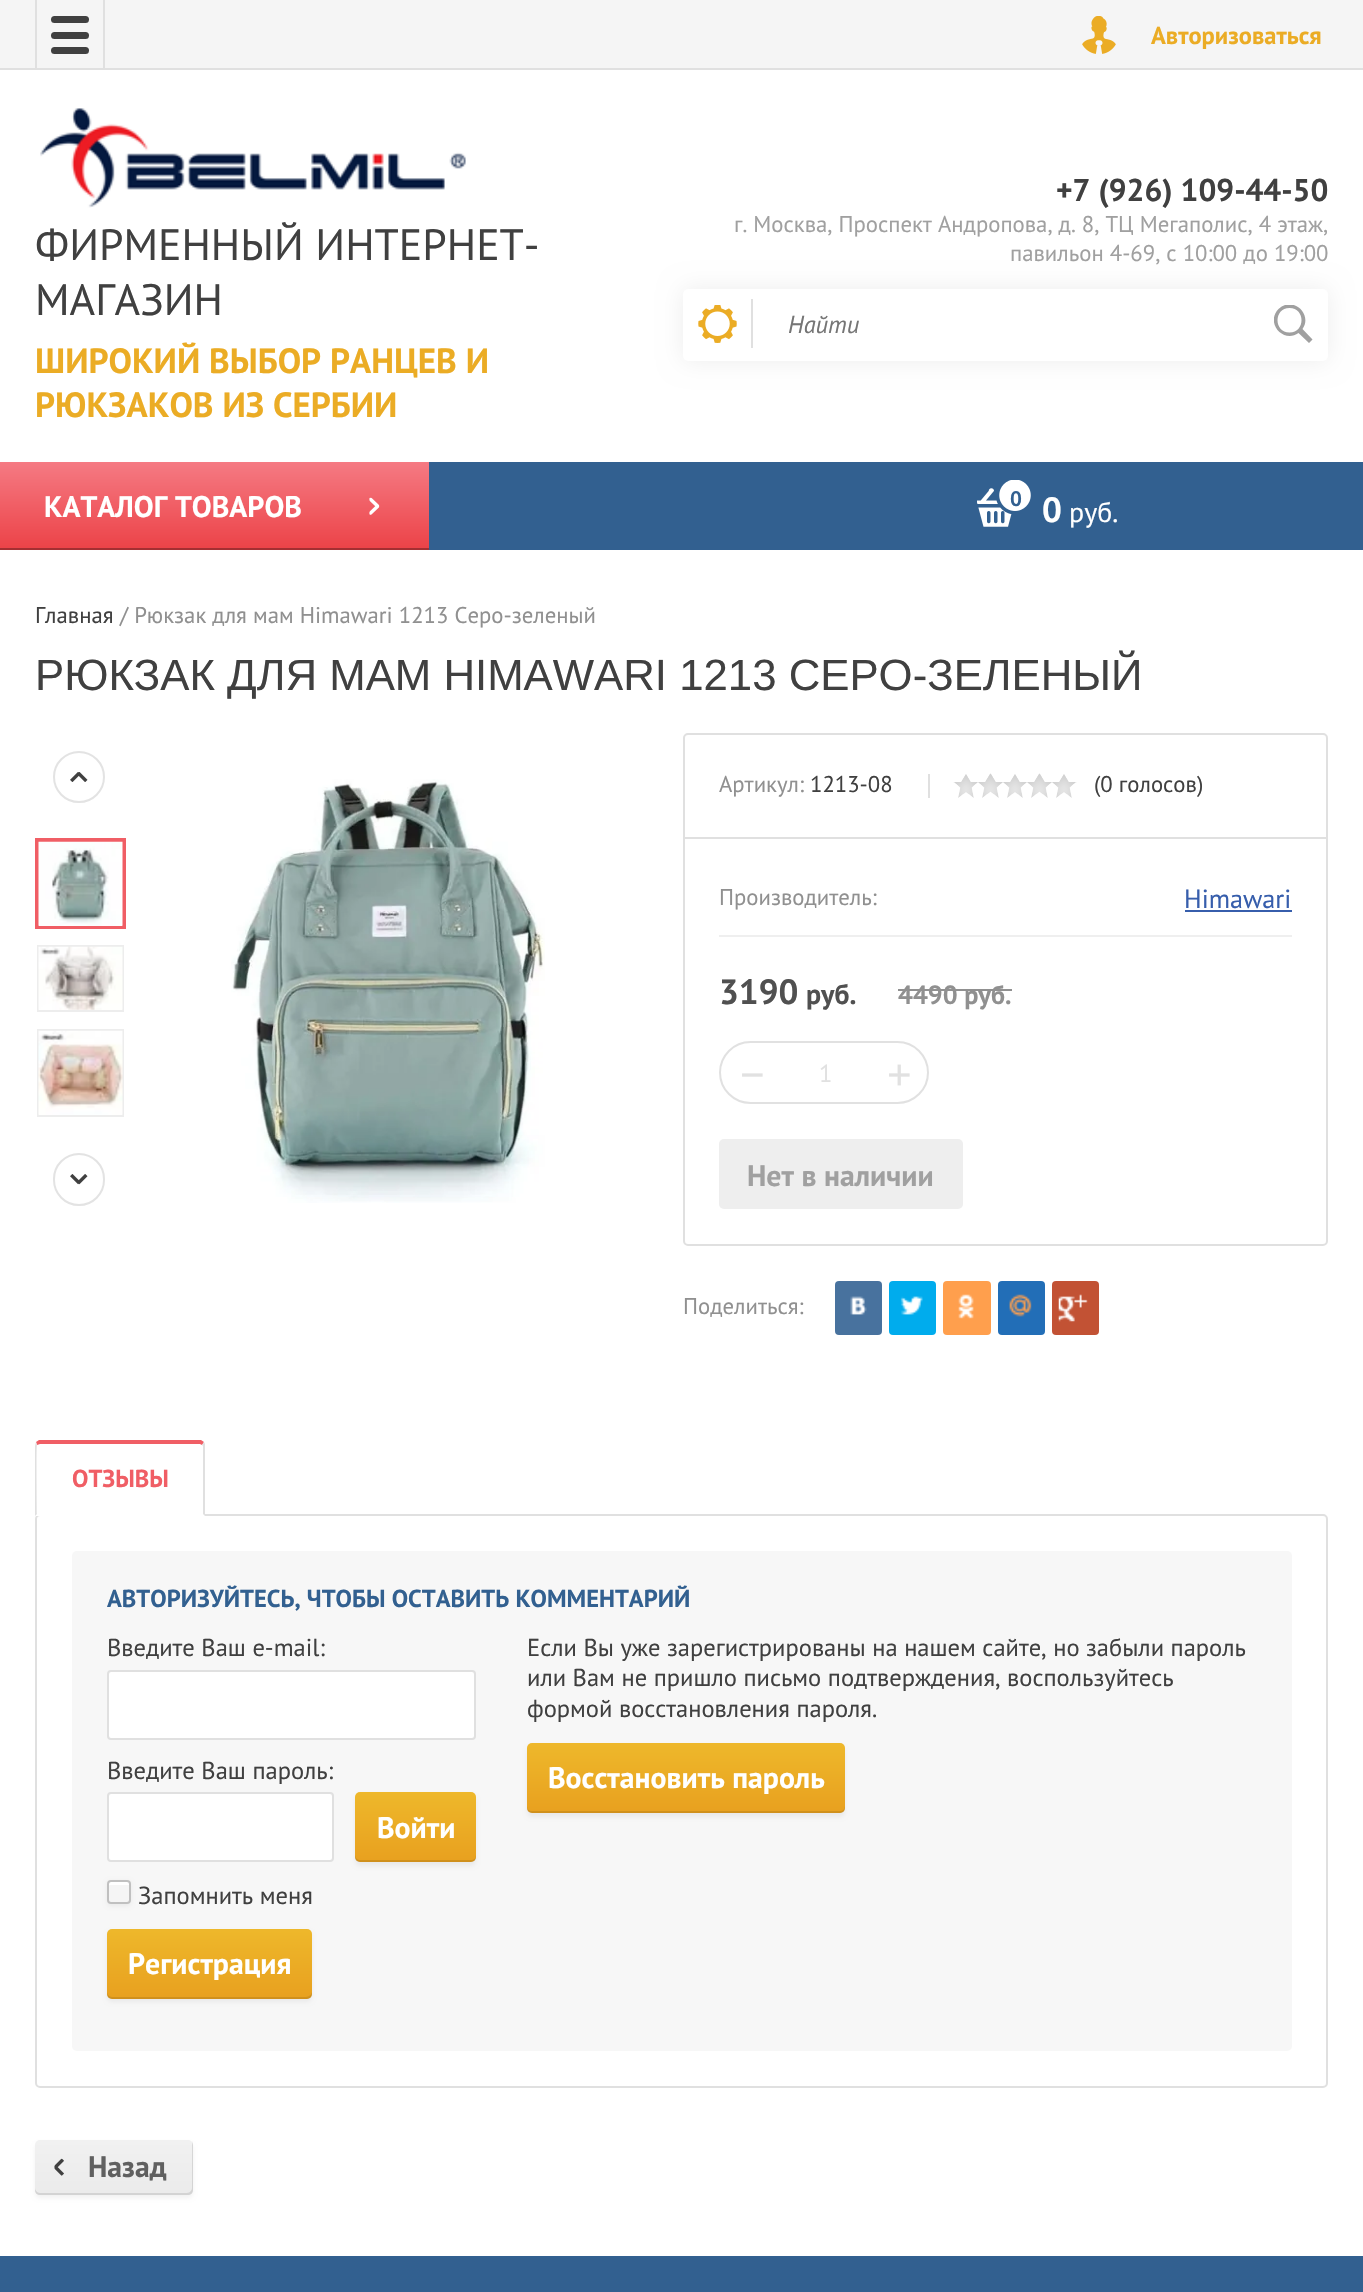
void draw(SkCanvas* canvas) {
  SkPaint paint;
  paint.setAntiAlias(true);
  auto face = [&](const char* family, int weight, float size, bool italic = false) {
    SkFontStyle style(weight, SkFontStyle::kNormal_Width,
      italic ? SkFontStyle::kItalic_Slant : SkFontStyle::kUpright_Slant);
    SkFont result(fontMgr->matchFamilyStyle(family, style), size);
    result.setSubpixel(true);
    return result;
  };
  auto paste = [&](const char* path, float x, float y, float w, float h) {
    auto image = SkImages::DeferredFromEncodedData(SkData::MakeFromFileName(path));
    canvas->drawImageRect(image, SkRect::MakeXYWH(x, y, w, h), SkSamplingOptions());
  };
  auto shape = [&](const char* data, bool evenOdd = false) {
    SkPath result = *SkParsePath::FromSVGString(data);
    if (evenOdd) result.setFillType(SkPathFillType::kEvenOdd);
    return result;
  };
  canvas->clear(0xffffffff);
  {
    const struct { float x, y, w, h; SkColor color; } items[] = {
      {0, 0, 1363, 68, 0xfff5f5f5},
      {0, 68, 1363, 2, 0xffe0e0e0},
      {103, 0, 2, 70, 0xffe0e0e0},
      {35, 0, 2, 70, 0xffe0e0e0},
    };
    for (auto [x, y, w, h, color] : items) {
      paint.setColor(color);
      canvas->drawRect(SkRect::MakeXYWH(x, y, w, h), paint);
    }
  }
  paint.setColor(0xff404040);
  canvas->drawRoundRect(SkRect::MakeXYWH(51, 16, 38, 7), 3.5f, 3.5f, paint);
  canvas->drawRoundRect(SkRect::MakeXYWH(51, 32, 38, 7), 3.5f, 3.5f, paint);
  canvas->drawRoundRect(SkRect::MakeXYWH(51, 47, 38, 7), 3.5f, 3.5f, paint);
  paste("img/1.png", 1082, 16, 34, 38);
  paste("img/2.png", 40, 108, 426, 100);
  paint.setColor(0x12000000);
  paint.setMaskFilter(SkMaskFilter::MakeBlur(kNormal_SkBlurStyle, 12));
  canvas->drawRoundRect(SkRect::MakeXYWH(683, 289, 645, 72), 5, 5, paint);
  paint.setMaskFilter(nullptr);
  paint.setColor(0xffffffff);
  canvas->drawRoundRect(SkRect::MakeXYWH(683, 289, 645, 72), 5, 5, paint);
  paste("img/3.png", 698, 305, 39, 38);
  paint.setColor(0xffe0e0e0);
  canvas->drawRect(SkRect::MakeXYWH(751, 299, 2, 49), paint);
  canvas->save();
  canvas->clipRect(SkRect::MakeXYWH(1274, 305, 39, 38));
  paint.setColor(0xffa0a0a0);
  canvas->drawPath(shape("M1312.5 339.5L1309 343L1298.5 333C1283.5 343.5 1265 323 1278.5 309C1292.5 295.5 1313 314 1302.5 329ZM1289.5 308C1273.5 308 1273.5 332.5 1289.5 332.5C1305.5 332.5 1305.5 308 1289.5 308Z", true), paint);
  canvas->restore();
  paint.setColor(0xff326090);
  canvas->drawRect(SkRect::MakeXYWH(429, 462, 934, 88), paint);
  {
    const SkColor colors[] = {0xffec4247, 0xfff57a83};
    const float stops[] = {0, 1};
    const SkPoint ends[] = {{214, 550}, {214, 462}};
    paint.setShader(SkGradientShader::MakeLinear(ends, colors, stops, 2, SkTileMode::kClamp));
    paint.setAlpha(255);
  }
  canvas->drawRect(SkRect::MakeXYWH(0, 462, 429, 86), paint);
  paint.setShader(nullptr);
  paint.setColor(0xffa52f32);
  canvas->drawRect(SkRect::MakeXYWH(0, 548, 429, 2), paint);
  paste("img/4.png", 369, 497, 11, 18);
  paste("img/5.png", 977, 480, 54, 47);
  paint.setStroke(true);
  paint.setStrokeWidth(2);
  paint.setColor(0xffe3e3e3);
  canvas->drawCircle(79, 777, 25, paint);
  paste("img/6.png", 70, 772, 18, 10);
  canvas->drawRoundRect(SkRect::MakeXYWH(54, 1154, 50, 51), 25, 25, paint);
  paste("img/7.png", 70, 1174, 18, 11);
  paint.setColor(0xfff05e65);
  canvas->drawRect(SkRect::MakeXYWH(38, 841, 85, 86), paint);
  paste("img/8.png", 38, 841, 85, 85);
  canvas->drawRect(SkRect::MakeXYWH(36, 839, 89, 89), paint);
  paint.setColor(0xffededed);
  canvas->drawRect(SkRect::MakeXYWH(38, 946, 85, 65), paint);
  paste("img/9.png", 38, 946, 85, 64);
  canvas->drawRect(SkRect::MakeXYWH(38, 1030, 85, 86), paint);
  paste("img/10.png", 38, 1030, 85, 85);
  paste("img/11.png", 231, 779, 314, 424);
  paint.setColor(0xffe0e0e0);
  canvas->drawRoundRect(SkRect::MakeXYWH(684, 734, 643, 511), 4, 4, paint);
  paint.setStroke(false);
  canvas->drawRect(SkRect::MakeXYWH(684, 837, 643, 2), paint);
  canvas->drawRect(SkRect::MakeXYWH(928, 774, 2, 24), paint);
  paste("img/12.png", 953, 773, 124, 25);
  {
    const struct { float x, y, w, h; SkColor color; } items[] = {
      {719, 935, 573, 2, 0xffefefef},
      {1185, 910, 107, 2, 0xff375eac},
      {898, 989, 114, 2, 0xff909090},
    };
    for (auto [x, y, w, h, color] : items) {
      paint.setColor(color);
      canvas->drawRect(SkRect::MakeXYWH(x, y, w, h), paint);
    }
  }
  paint.setStroke(true);
  paint.setColor(0xffe1e1e1);
  canvas->drawRoundRect(SkRect::MakeXYWH(720, 1042, 208, 61), 30.5f, 30.5f, paint);
  paint.setStroke(false);
  paint.setColor(0xffeeeeee);
  canvas->drawRoundRect(SkRect::MakeXYWH(719, 1139, 244, 70), 5, 5, paint);
  paint.setColor(0xff48729e);
  canvas->drawRoundRect(SkRect::MakeXYWH(835, 1281, 47, 54), 4, 4, paint);
  paste("img/13.png", 850, 1296, 17, 19);
  paint.setColor(0xff00aced);
  canvas->drawRoundRect(SkRect::MakeXYWH(889, 1281, 47, 54), 4, 4, paint);
  paste("img/14.png", 900, 1296, 23, 19);
  paint.setColor(0xffff9f4d);
  canvas->drawRoundRect(SkRect::MakeXYWH(943, 1281, 48, 54), 4, 4, paint);
  paste("img/15.png", 958, 1294, 16, 25);
  paint.setColor(0xff226eb7);
  canvas->drawRoundRect(SkRect::MakeXYWH(998, 1281, 47, 54), 4, 4, paint);
  paste("img/16.png", 1009, 1294, 23, 23);
  paint.setColor(0xffc25234);
  canvas->drawRoundRect(SkRect::MakeXYWH(1052, 1281, 47, 54), 4, 4, paint);
  paste("img/17.png", 1058, 1294, 30, 28);
  paint.setColor(0xfff05e65);
  canvas->drawPath(shape("M40 1444L37 1445L36 1442L39 1440H201L204 1442L202 1445L200 1444Z"), paint);
  paint.setStroke(true);
  paint.setColor(0xffe0e0e0);
  canvas->drawRoundRect(SkRect::MakeXYWH(36, 1515, 1291, 572), 4, 4, paint);
  paint.setStroke(false);
  canvas->drawPath(shape("M204 1442L205 1444V1516L203 1514V1446L202 1445Z"), paint);
  paint.setColor(0xffffffff);
  canvas->drawPath(shape("M205 1516L203 1514H37L35 1516Z"), paint);
  paint.setColor(0xffe0e0e0);
  canvas->drawPath(shape("M35 1516L37 1514C37 1507 36 1446 37 1445L36 1442L35 1446Z"), paint);
  paint.setColor(0xfff7f7f7);
  canvas->drawRoundRect(SkRect::MakeXYWH(72, 1551, 1220, 500), 5, 5, paint);
  paint.setColor(0xffffffff);
  canvas->drawRoundRect(SkRect::MakeXYWH(108, 1671, 367, 68), 3, 3, paint);
  paint.setStroke(true);
  paint.setColor(0xffe0e0e0);
  canvas->drawRoundRect(SkRect::MakeXYWH(108, 1671, 367, 68), 3, 3, paint);
  paint.setStroke(false);
  paint.setColor(0xffffffff);
  canvas->drawRoundRect(SkRect::MakeXYWH(108, 1793, 225, 68), 3, 3, paint);
  paint.setStroke(true);
  paint.setColor(0xffe0e0e0);
  canvas->drawRoundRect(SkRect::MakeXYWH(108, 1793, 225, 68), 3, 3, paint);
  paint.setStroke(false);
  paint.setColor(0x0d000000);
  paint.setMaskFilter(SkMaskFilter::MakeBlur(kNormal_SkBlurStyle, 2));
  canvas->drawRoundRect(SkRect::MakeXYWH(355, 1796, 121, 70), 5, 5, paint);
  paint.setMaskFilter(nullptr);
  {
    const SkColor colors[] = {0xffe8a01f, 0xffeeb82b};
    const float stops[] = {0, 1};
    const SkPoint ends[] = {{416, 1862}, {416, 1792}};
    paint.setShader(SkGradientShader::MakeLinear(ends, colors, stops, 2, SkTileMode::kClamp));
    paint.setAlpha(255);
  }
  canvas->drawRoundRect(SkRect::MakeXYWH(355, 1792, 121, 70), 5, 5, paint);
  paint.setShader(nullptr);
  paint.setColor(0x1a000000);
  canvas->drawPath(shape("M355 1855V1857C355 1860 357 1862 360 1862H471C474 1862 476 1860 476 1857V1855C476 1858 474 1860 471 1860H360C358 1860 355 1858 355 1855Z"), paint);
  paint.setColor(0x0d000000);
  paint.setMaskFilter(SkMaskFilter::MakeBlur(kNormal_SkBlurStyle, 2));
  canvas->drawRoundRect(SkRect::MakeXYWH(107, 1881, 24, 25), 4, 4, paint);
  paint.setMaskFilter(nullptr);
  paint.setColor(0xfff5f5f5);
  canvas->drawRoundRect(SkRect::MakeXYWH(107, 1880, 24, 24), 4, 4, paint);
  paint.setColor(0xffffffff);
  canvas->drawPath(shape("M110 1885H128.5L130 1886C130 1881 130 1881 125 1881H114C109.5 1881 109 1881 109 1885.5Z"), paint);
  paint.setStroke(true);
  paint.setColor(0xffc0c0c0);
  canvas->drawRoundRect(SkRect::MakeXYWH(108, 1881, 22, 22), 3, 3, paint);
  paint.setStroke(false);
  paint.setColor(0x0d000000);
  paint.setMaskFilter(SkMaskFilter::MakeBlur(kNormal_SkBlurStyle, 2));
  canvas->drawRoundRect(SkRect::MakeXYWH(107, 1932, 205, 70), 5, 5, paint);
  paint.setMaskFilter(nullptr);
  {
    const SkColor colors[] = {0xffe8a01f, 0xffeeb82b};
    const float stops[] = {0, 1};
    const SkPoint ends[] = {{209, 1999}, {209, 1929}};
    paint.setShader(SkGradientShader::MakeLinear(ends, colors, stops, 2, SkTileMode::kClamp));
    paint.setAlpha(255);
  }
  canvas->drawRoundRect(SkRect::MakeXYWH(107, 1929, 205, 70), 5, 5, paint);
  paint.setShader(nullptr);
  paint.setColor(0x1a000000);
  canvas->drawPath(shape("M107 1992V1994C107 1997 109 1999 112 1999H307C310 1999 312 1997 312 1994V1992C312 1994 309 1997 306 1997H112C109 1997 107 1994 107 1992Z"), paint);
  paint.setColor(0x0d000000);
  paint.setMaskFilter(SkMaskFilter::MakeBlur(kNormal_SkBlurStyle, 2));
  canvas->drawRoundRect(SkRect::MakeXYWH(527, 1747, 318, 70), 5, 5, paint);
  paint.setMaskFilter(nullptr);
  {
    const SkColor colors[] = {0xffe8a01f, 0xffeeb82b};
    const float stops[] = {0, 1};
    const SkPoint ends[] = {{686, 1813}, {686, 1743}};
    paint.setShader(SkGradientShader::MakeLinear(ends, colors, stops, 2, SkTileMode::kClamp));
    paint.setAlpha(255);
  }
  canvas->drawRoundRect(SkRect::MakeXYWH(527, 1743, 318, 70), 5, 5, paint);
  paint.setShader(nullptr);
  paint.setColor(0x1a000000);
  canvas->drawPath(shape("M527 1806V1808C527 1811 529 1813 532 1813H840C843 1813 845 1811 845 1808V1806C845 1809 843 1811 840 1811H532C529 1811 527 1809 527 1806Z"), paint);
  paint.setColor(0x0d000000);
  paint.setMaskFilter(SkMaskFilter::MakeBlur(kNormal_SkBlurStyle, 2));
  canvas->drawRoundRect(SkRect::MakeXYWH(35, 2144, 158, 54), 5, 5, paint);
  paint.setMaskFilter(nullptr);
  {
    const SkColor colors[] = {0xffebebeb, 0xfff1f1f1};
    const float stops[] = {0, 1};
    const SkPoint ends[] = {{114, 2195}, {114, 2140}};
    paint.setShader(SkGradientShader::MakeLinear(ends, colors, stops, 2, SkTileMode::kClamp));
    paint.setAlpha(255);
  }
  canvas->drawRoundRect(SkRect::MakeXYWH(35, 2140, 158, 55), 5, 5, paint);
  paint.setShader(nullptr);
  paint.setColor(0x1a000000);
  canvas->drawPath(shape("M35 2188V2190C35 2193 37 2195 40 2195H188C191 2195 193 2193 193 2190V2145C193 2144 192 2142 192 2141V2144V2188C192 2190 190 2193 187 2193H40C37 2193 35 2190 35 2188Z"), paint);
  paste("img/18.png", 54, 2158, 10, 18);
  paint.setColor(0xff326090);
  canvas->drawRect(SkRect::MakeXYWH(0, 2256, 1363, 36), paint);
  auto f0 = face("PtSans", 700, 24.5f);
  paint.setColor(0xffebac25);
  canvas->drawString("Авторизоваться", 1151, 44, f0, paint);
  auto f1 = face("PtSans", 400, 43.75f);
  paint.setColor(0xff404040);
  canvas->drawString("ФИРМЕННЫЙ ИНТЕРНЕТ-", 35, 260, f1, paint);
  canvas->drawString("МАГАЗИН", 35, 315, f1, paint);
  auto f2 = face("PtSans", 700, 35);
  paint.setColor(0xffebac25);
  canvas->drawString("ШИРОКИЙ ВЫБОР РАНЦЕВ И", 35, 373, f2, paint);
  canvas->drawString("РЮКЗАКОВ ИЗ СЕРБИИ", 35, 417, f2, paint);
  auto f3 = face("PtSans", 700, 31.5f);
  paint.setColor(0xff404040);
  canvas->drawString("+7 (926) 109-44-50", 1056, 201, f3, paint);
  auto f4 = face("PtSans", 400, 22.75f);
  paint.setColor(0xffa0a0a0);
  canvas->drawString("г. Москва, Проспект Андропова, д. 8, ТЦ Мегаполис, 4 этаж,", 734, 232, f4, paint);
  canvas->drawString("павильон 4-69, с 10:00 до 19:00", 1010, 261, f4, paint);
  auto f5 = face("PtSans", 400, 24.5f, true);
  paint.setColor(0xff757575);
  canvas->drawString("Найти", 788, 333, f5, paint);
  auto f6 = face("PtSans", 700, 29.75f);
  paint.setColor(0xffffffff);
  canvas->drawString("КАТАЛОГ ТОВАРОВ", 44, 517, f6, paint);
  auto f7 = face("PtSans", 700, 21);
  paint.setColor(0xff326090);
  canvas->drawString("0", 1010, 506, f7, paint);
  paint.setColor(0xffffffff);
  canvas->drawString("0", 1042, 522, f2, paint);
  auto f8 = face("PtSans", 400, 28);
  canvas->drawString("руб.", 1069, 522, f8, paint);
  paint.setColor(0xff404040);
  canvas->drawString("Главная", 35, 623, f4, paint);
  paint.setColor(0xff909090);
  canvas->drawString("/ Рюкзак для мам Himawari 1213 Серо-зеленый", 120, 623, f4, paint);
  auto f9 = face("Liberation Sans", 400, 43.75f);
  paint.setColor(0xff404040);
  canvas->drawString("РЮКЗАК ДЛЯ МАМ HIMAWARI 1213 СЕРО-ЗЕЛЕНЫЙ", 35, 690, f9, paint);
  paint.setColor(0xff909090);
  canvas->drawString("Артикул:", 719, 792, f4, paint);
  paint.setColor(0xff404040);
  canvas->drawString("1213-08", 810, 792, f4, paint);
  canvas->drawString("(0 голосов)", 1094, 792, f4, paint);
  paint.setColor(0xff909090);
  canvas->drawString("Производитель:", 719, 905, f4, paint);
  auto f10 = face("PtSans", 400, 26.25f);
  paint.setColor(0xff375eac);
  canvas->drawString("Himawari", 1184, 908, f10, paint);
  paint.setColor(0xff505050);
  canvas->drawString("3190", 719, 1004, f2, paint);
  auto f11 = face("PtSans", 700, 28);
  canvas->drawString("руб.", 806, 1004, f11, paint);
  auto f12 = face("PtSans", 700, 26.25f);
  paint.setColor(0xff909090);
  canvas->drawString("4490 руб.", 898, 1004, f12, paint);
  auto f13 = face("Liberation Sans", 400, 42);
  paint.setColor(0xffe1e1e1);
  canvas->drawString("−", 740, 1089, f13, paint);
  auto f14 = face("PtSans", 400, 24.5f);
  canvas->drawString("1", 819, 1082, f14, paint);
  canvas->drawString("+", 887, 1089, f13, paint);
  paint.setColor(0xffa0a0a0);
  canvas->drawString("Нет в наличии", 747, 1186, f6, paint);
  paint.setColor(0xff909090);
  canvas->drawString("Поделиться:", 683, 1314, f4, paint);
  paint.setColor(0xfff05e65);
  canvas->drawString("ОТЗЫВЫ", 72, 1487, f0, paint);
  paint.setColor(0xff326090);
  canvas->drawString("АВТОРИЗУЙТЕСЬ, ЧТОБЫ ОСТАВИТЬ КОММЕНТАРИЙ", 107, 1607, f0, paint);
  paint.setColor(0xff404040);
  canvas->drawString("Введите Ваш e-mail:", 107, 1656, f14, paint);
  canvas->drawString("Введите Ваш пароль:", 107, 1779, f14, paint);
  paint.setColor(0xffffffff);
  canvas->drawString("Войти", 377, 1838, f6, paint);
  paint.setColor(0xff404040);
  canvas->drawString("Запомнить меня", 138, 1904, f14, paint);
  paint.setColor(0xffffffff);
  canvas->drawString("Регистрация", 128, 1974, f6, paint);
  paint.setColor(0xff404040);
  {
    const struct { const char* s; float x, y; } items[] = {
      {"Если Вы уже зарегистрированы на нашем сайте, но забыли пароль", 527, 1656},
      {"или Вам не пришло письмо подтверждения, воспользуйтесь", 527, 1686},
      {"формой восстановления пароля.", 527, 1717},
    };
    for (auto [s, x, y] : items) {
      canvas->drawString(s, x, y, f14, paint);
    }
  }
  paint.setColor(0xffffffff);
  canvas->drawString("Восстановить пароль", 548, 1788, f6, paint);
  paint.setColor(0xff606060);
  canvas->drawString("Назад", 88, 2177, f6, paint);
}
